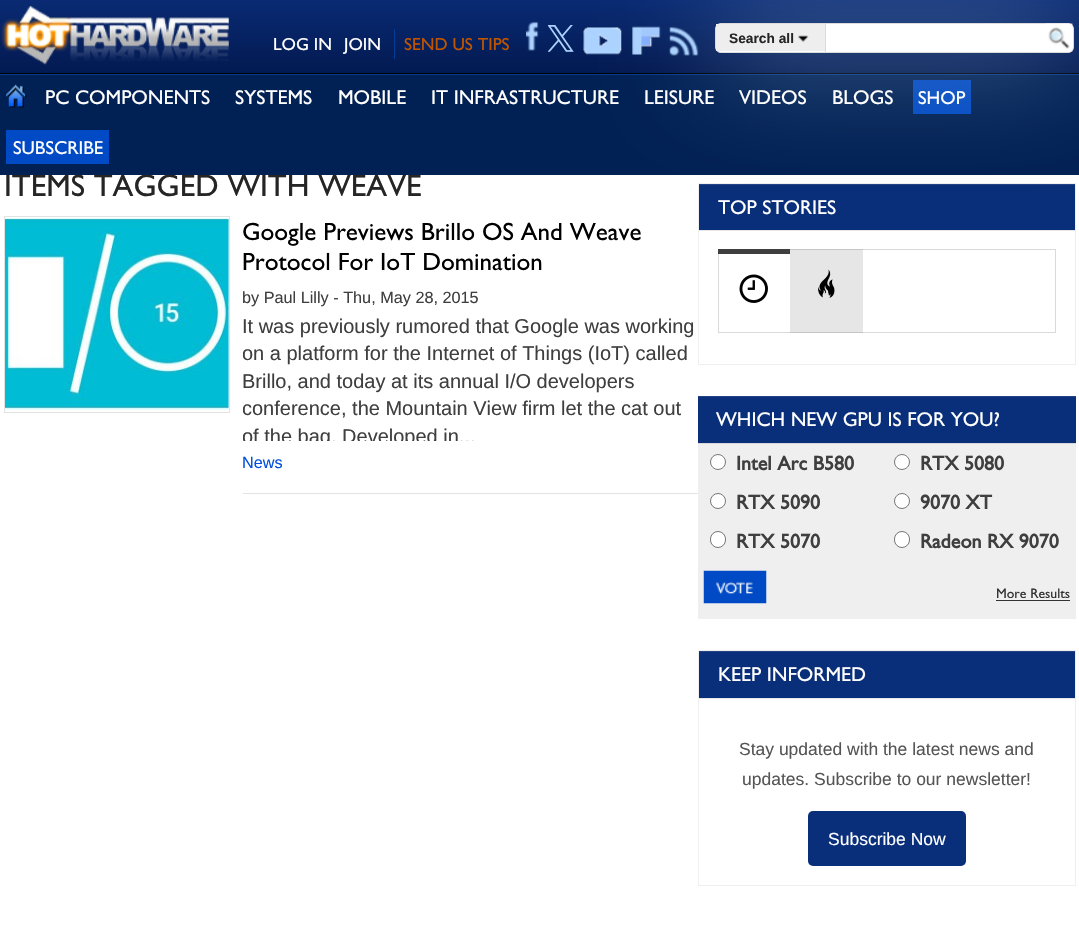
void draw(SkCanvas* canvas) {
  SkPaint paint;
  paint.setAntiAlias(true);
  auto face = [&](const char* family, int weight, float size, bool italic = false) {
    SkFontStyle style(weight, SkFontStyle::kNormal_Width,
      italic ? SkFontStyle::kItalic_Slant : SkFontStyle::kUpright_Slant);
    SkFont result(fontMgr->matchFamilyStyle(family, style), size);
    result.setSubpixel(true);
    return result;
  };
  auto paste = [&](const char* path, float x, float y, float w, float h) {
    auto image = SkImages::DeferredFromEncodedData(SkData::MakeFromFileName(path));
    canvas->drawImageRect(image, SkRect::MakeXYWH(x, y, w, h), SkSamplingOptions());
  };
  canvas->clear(0xffffffff);
  {
    const SkColor colors[] = {0xff092a73, 0xff031a51};
    const float stops[] = {0, 1};
    const SkPoint ends[] = {{540, 0}, {540, 73}};
    paint.setShader(SkGradientShader::MakeLinear(ends, colors, stops, 2, SkTileMode::kClamp));
    paint.setAlpha(255);
  }
  canvas->drawRect(SkRect::MakeXYWH(0, 0, 1079, 73), paint);
  paint.setShader(nullptr);
  paint.setColor(0xff000000);
  canvas->drawRect(SkRect::MakeXYWH(0, 73, 1079, 1), paint);
  paste("img/1.png", 1, 6, 228, 59);
  paint.setColor(0xff043c92);
  canvas->drawRect(SkRect::MakeXYWH(394, 29, 1, 30), paint);
  paste("img/2.png", 526, 21, 13, 30);
  paste("img/3.png", 548, 25, 26, 27);
  paste("img/4.png", 583, 27, 39, 28);
  paste("img/5.png", 632, 26, 29, 29);
  paste("img/6.png", 669, 26, 30, 30);
  canvas->drawRect(SkRect::MakeXYWH(0, 74, 1079, 1), paint);
  paint.setStroke(true);
  paint.setStrokeWidth(1);
  paint.setColor(0xffe2e2e2);
  canvas->drawRect(SkRect::MakeXYWH(4.5f, 216.5f, 225, 196), paint);
  paste("img/10.png", 5, 218, 224, 192);
  paint.setStroke(false);
  paint.setColor(0xffe3e3e3);
  canvas->drawRect(SkRect::MakeXYWH(243, 493, 458, 1), paint);
  paint.setStroke(true);
  paint.setColor(0xffefefef);
  canvas->drawRect(SkRect::MakeXYWH(698.5f, 183.5f, 377, 181), paint);
  paint.setStroke(false);
  {
    const struct { float x, y, w, h; SkColor color; } items[] = {
      {699, 230, 376, 1, 0xffe6e6e6},
      {699, 185, 376, 45, 0xff092f7a},
      {699, 184, 376, 1, 0xff224487},
      {790, 249, 73, 84, 0xffe6e6e6},
      {718, 249, 72, 5, 0xff3f3f3f},
    };
    for (auto [x, y, w, h, color] : items) {
      paint.setColor(color);
      canvas->drawRect(SkRect::MakeXYWH(x, y, w, h), paint);
    }
  }
  paste("img/11.png", 739, 274, 29, 29);
  paste("img/12.png", 818, 269, 17, 29);
  paint.setStroke(true);
  paint.setColor(0x333f3f3f);
  canvas->drawRect(SkRect::MakeXYWH(718.5f, 249.5f, 337, 83), paint);
  paint.setStroke(false);
  {
    const struct { float x, y, w, h; SkColor color; } items[] = {
      {698, 444, 378, 175, 0xffefefef},
      {698, 443, 378, 1, 0xffd7d7d7},
      {698, 397, 378, 46, 0xff092f7a},
      {698, 396, 378, 1, 0xff224487},
    };
    for (auto [x, y, w, h, color] : items) {
      paint.setColor(color);
      canvas->drawRect(SkRect::MakeXYWH(x, y, w, h), paint);
    }
  }
  paint.setColor(0xffffffff);
  canvas->drawCircle(718, 462, 7.5f, paint);
  paint.setStroke(true);
  paint.setColor(0xff767676);
  canvas->drawCircle(718, 462, 7.5f, paint);
  paint.setStroke(false);
  paint.setColor(0xffffffff);
  canvas->drawCircle(902, 462, 7.5f, paint);
  paint.setStroke(true);
  paint.setColor(0xff767676);
  canvas->drawCircle(902, 462, 7.5f, paint);
  paint.setStroke(false);
  paint.setColor(0xffffffff);
  canvas->drawCircle(718, 501, 7.5f, paint);
  paint.setStroke(true);
  paint.setColor(0xff767676);
  canvas->drawCircle(718, 501, 7.5f, paint);
  paint.setStroke(false);
  paint.setColor(0xffffffff);
  canvas->drawCircle(902, 501, 7.5f, paint);
  paint.setStroke(true);
  paint.setColor(0xff767676);
  canvas->drawCircle(902, 501, 7.5f, paint);
  paint.setStroke(false);
  paint.setColor(0xffffffff);
  canvas->drawRoundRect(SkRect::MakeXYWH(710.5f, 531.5f, 15, 16), 7.5f, 7.5f, paint);
  paint.setStroke(true);
  paint.setColor(0xff767676);
  canvas->drawRoundRect(SkRect::MakeXYWH(710.5f, 531.5f, 15, 16), 7.5f, 7.5f, paint);
  paint.setStroke(false);
  paint.setColor(0xffffffff);
  canvas->drawRoundRect(SkRect::MakeXYWH(894.5f, 531.5f, 15, 16), 7.5f, 7.5f, paint);
  paint.setStroke(true);
  paint.setColor(0xff767676);
  canvas->drawRoundRect(SkRect::MakeXYWH(894.5f, 531.5f, 15, 16), 7.5f, 7.5f, paint);
  paste("img/13.png", 703, 570, 64, 34);
  paint.setStroke(false);
  paint.setColor(0xff333333);
  canvas->drawRect(SkRect::MakeXYWH(996, 600, 74, 1), paint);
  paint.setStroke(true);
  paint.setColor(0xffefefef);
  canvas->drawRect(SkRect::MakeXYWH(698.5f, 650.5f, 377, 235), paint);
  paint.setStroke(false);
  {
    const struct { float x, y, w, h; SkColor color; } items[] = {
      {699, 698, 376, 1, 0xffe6e6e6},
      {699, 652, 376, 46, 0xff092f7a},
      {699, 651, 376, 1, 0xff224487},
    };
    for (auto [x, y, w, h, color] : items) {
      paint.setColor(color);
      canvas->drawRect(SkRect::MakeXYWH(x, y, w, h), paint);
    }
  }
  paint.setColor(0xff092f7a);
  canvas->drawRoundRect(SkRect::MakeXYWH(808, 811, 158, 55), 5, 5, paint);
  auto f0 = face("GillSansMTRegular", 400, 17.5f);
  paint.setColor(0xffffffff);
  canvas->drawString("LOG IN", 273, 50, f0, paint);
  canvas->drawString("JOIN", 344, 50, f0, paint);
  paint.setColor(0xffc05500);
  canvas->drawString("SEND US TIPS", 404, 50, f0, paint);
  auto f1 = face("GillSansMTRegular", 400, 31.25f);
  paint.setColor(0xff252525);
  canvas->drawString("ITEMS TAGGED WITH WEAVE", 4, 196, f1, paint);
  paint.setColor(0xff012054);
  canvas->drawRect(SkRect::MakeXYWH(0, 75, 1079, 100), paint);
  paint.setColor(0xff004ac5);
  canvas->drawRect(SkRect::MakeXYWH(913, 80, 58, 34), paint);
  paint.setColor(0xff8bacd1);
  paint.setMaskFilter(SkMaskFilter::MakeBlur(kNormal_SkBlurStyle, 56));
  canvas->drawRoundRect(SkRect::MakeXYWH(715, 23, 359, 30), 6, 6, paint);
  paint.setMaskFilter(nullptr);
  auto f2 = face("GillSansMTRegular", 400, 20);
  paint.setColor(0xffffffff);
  {
    const struct { const char* s; float x, y; } items[] = {
      {"VIDEOS", 739, 104},
      {"LEISURE", 644, 104},
      {"IT INFRASTRUCTURE", 431, 104},
      {"MOBILE", 338, 104},
      {"SYSTEMS", 235, 104},
      {"PC COMPONENTS", 45, 104},
    };
    for (auto [s, x, y] : items) {
      canvas->drawString(s, x, y, f2, paint);
    }
  }
  paste("img/9.png", 6, 84, 21, 24);
  canvas->drawRoundRect(SkRect::MakeXYWH(715.5f, 23.5f, 358, 29), 5.5f, 5.5f, paint);
  paint.setStroke(true);
  paint.setColor(0xffdbdbdb);
  canvas->drawRoundRect(SkRect::MakeXYWH(715.5f, 23.5f, 358, 29), 5.5f, 5.5f, paint);
  paint.setStroke(false);
  paint.setColor(0xffeeeeee);
  canvas->drawRect(SkRect::MakeXYWH(716, 24, 109, 27), paint);
  paste("img/7.png", 798, 35, 11, 7);
  auto f3 = face("Liberation Sans", 700, 13.75f);
  paint.setColor(0xff252525);
  canvas->drawString("Search all", 729, 43, f3, paint);
  paste("img/8.png", 1045, 23, 28, 29);
  paint.setColor(0xffdbdbdb);
  canvas->drawRect(SkRect::MakeXYWH(825, 24, 1, 29), paint);
  paint.setColor(0xff004ac5);
  canvas->drawRect(SkRect::MakeXYWH(6, 130, 103, 34), paint);
  auto f4 = face("GillSansMTRegular", 400, 18.75f);
  paint.setColor(0xffffffff);
  canvas->drawString("SUBSCRIBE", 13, 154, f4, paint);
  canvas->drawString("SHOP", 918, 104, f4, paint);
  canvas->drawString("BLOGS", 832, 104, f2, paint);
  auto f5 = face("GillSansMTRegular", 400, 25);
  paint.setColor(0xff000000);
  canvas->drawString("Google Previews Brillo OS And Weave", 242, 240, f5, paint);
  canvas->drawString("Protocol For IoT Domination", 242, 270, f5, paint);
  auto f6 = face("Liberation Sans", 400, 16.25f);
  paint.setColor(0xff3f3f3f);
  canvas->drawString("by Paul Lilly - Thu, May 28, 2015", 242, 303, f6, paint);
  auto f7 = face("Liberation Sans", 400, 20);
  canvas->drawString("It was previously rumored that Google was working", 242, 333, f7, paint);
  canvas->save();
  canvas->clipRect(SkRect::MakeXYWH(243, 216, 458, 225));
  canvas->drawString("on a platform for the Internet of Things (IoT) called", 242, 360, f7, paint);
  canvas->restore();
  canvas->drawString("Brillo, and today at its annual I/O developers", 242, 388, f7, paint);
  canvas->save();
  canvas->clipRect(SkRect::MakeXYWH(243, 216, 458, 225));
  canvas->drawString("conference, the Mountain View firm let the cat out", 242, 415, f7, paint);
  canvas->drawString("of the bag. Developed in...", 242, 443, f7, paint);
  canvas->restore();
  paint.setColor(0xff004fe0);
  canvas->drawString("News", 242, 468, f6, paint);
  paint.setColor(0xffffffff);
  canvas->drawString("TOP STORIES", 718, 214, f2, paint);
  canvas->drawString("WHICH NEW GPU IS FOR YOU?", 716, 426, f2, paint);
  auto f8 = face("GillSansMTRegular", 700, 20);
  paint.setColor(0xff3f3f3f);
  {
    const struct { const char* s; float x, y; } items[] = {
      {"Intel Arc B580", 736, 470},
      {"RTX 5080", 920, 470},
      {"RTX 5090", 736, 509},
      {"9070 XT", 920, 509},
      {"RTX 5070", 736, 548},
      {"Radeon RX 9070", 920, 548},
    };
    for (auto [s, x, y] : items) {
      canvas->drawString(s, x, y, f8, paint);
    }
  }
  auto f9 = face("GillSansMTRegular", 400, 13.75f);
  paint.setColor(0xff333333);
  canvas->drawString("More Results", 996, 598, f9, paint);
  paint.setColor(0xffffffff);
  canvas->drawString("KEEP INFORMED", 718, 681, f2, paint);
  auto f10 = face("Liberation Sans", 400, 17.5f);
  paint.setColor(0xff555555);
  canvas->drawString("Stay updated with the latest news and", 739, 755, f10, paint);
  canvas->drawString("updates. Subscribe to our newsletter!", 742, 785, f10, paint);
  paint.setColor(0xffffffff);
  canvas->drawString("Subscribe Now", 828, 845, f10, paint);
}
